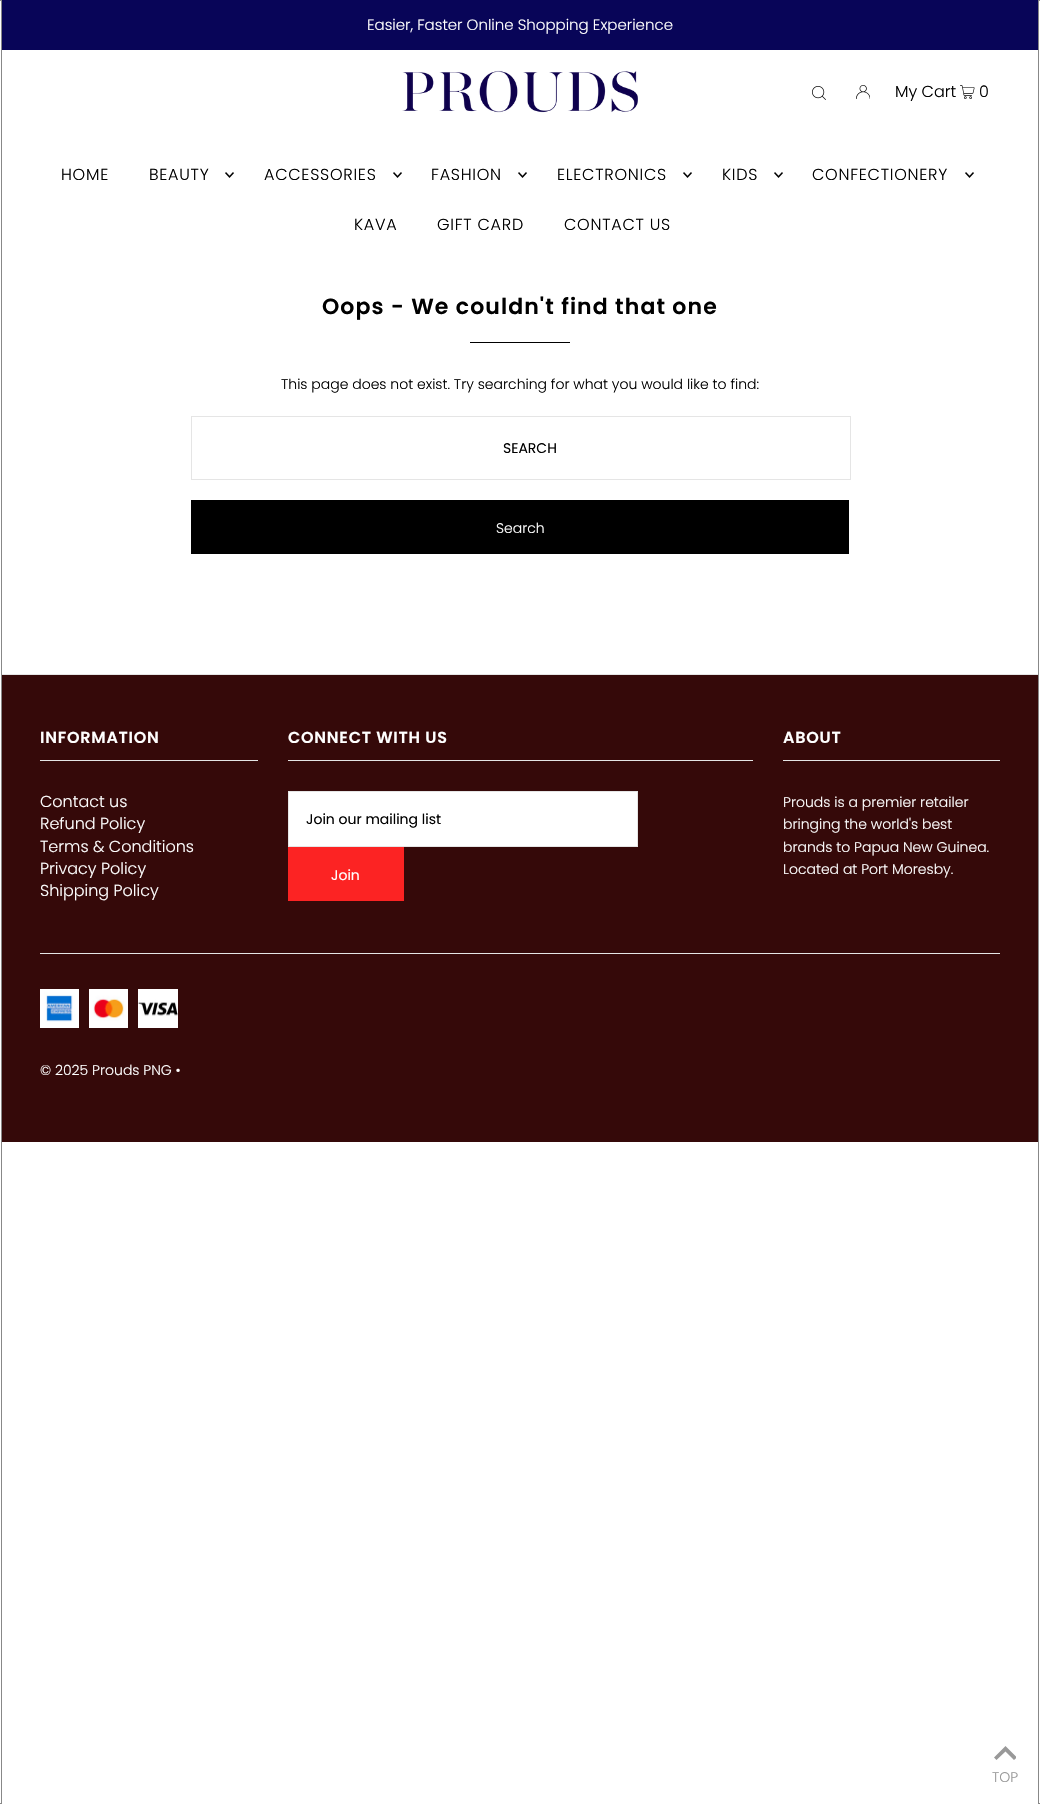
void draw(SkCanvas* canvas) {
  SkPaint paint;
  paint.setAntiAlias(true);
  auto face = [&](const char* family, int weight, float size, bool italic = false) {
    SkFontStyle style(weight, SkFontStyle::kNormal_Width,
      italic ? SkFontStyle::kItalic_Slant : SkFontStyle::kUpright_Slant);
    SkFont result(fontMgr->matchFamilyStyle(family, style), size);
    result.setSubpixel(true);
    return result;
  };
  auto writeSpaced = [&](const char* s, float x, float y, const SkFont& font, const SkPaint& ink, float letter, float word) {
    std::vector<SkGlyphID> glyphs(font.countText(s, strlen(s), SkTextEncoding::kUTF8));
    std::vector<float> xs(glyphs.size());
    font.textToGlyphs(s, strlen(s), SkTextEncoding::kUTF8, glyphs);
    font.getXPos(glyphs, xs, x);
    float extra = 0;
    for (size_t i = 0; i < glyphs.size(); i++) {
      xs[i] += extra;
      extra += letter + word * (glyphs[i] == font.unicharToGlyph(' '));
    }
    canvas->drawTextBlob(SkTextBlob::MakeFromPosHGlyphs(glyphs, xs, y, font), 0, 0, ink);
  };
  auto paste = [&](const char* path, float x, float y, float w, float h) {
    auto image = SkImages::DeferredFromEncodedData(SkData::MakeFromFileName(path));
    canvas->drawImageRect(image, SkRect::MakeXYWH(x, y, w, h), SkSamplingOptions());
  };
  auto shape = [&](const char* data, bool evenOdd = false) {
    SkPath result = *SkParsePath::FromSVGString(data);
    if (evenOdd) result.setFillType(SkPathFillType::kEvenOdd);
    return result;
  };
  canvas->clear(0xffffffff);
  paint.setColor(0xffe5e5e5);
  canvas->drawRect(SkRect::MakeXYWH(0, 674, 1040, 1), paint);
  paint.setColor(0xffffffff);
  canvas->drawRect(SkRect::MakeXYWH(0, 674, 1, 1), paint);
  paint.setStroke(true);
  paint.setStrokeWidth(1);
  paint.setColor(0xff888888);
  canvas->drawRect(SkRect::MakeXYWH(-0.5f, 0.5f, 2, 1803), paint);
  paint.setStroke(false);
  paint.setColor(0xff080558);
  canvas->drawRect(SkRect::MakeXYWH(2, 0, 1036, 50), paint);
  paste("img/1.png", 402, 70, 236, 43);
  paste("img/2.png", 812, 86, 14, 14);
  paste("img/3.png", 856, 85, 14, 14);
  paste("img/4.png", 960, 85, 15, 14);
  paste("img/5.png", 225, 172, 9, 6);
  paste("img/5.png", 393, 172, 9, 6);
  paste("img/5.png", 518, 172, 9, 6);
  paste("img/5.png", 683, 172, 9, 6);
  paste("img/5.png", 774, 172, 9, 6);
  paste("img/5.png", 965, 172, 9, 6);
  paint.setColor(0xff000000);
  canvas->drawRect(SkRect::MakeXYWH(470, 342, 100, 1), paint);
  paint.setStroke(true);
  paint.setColor(0xffe5e5e5);
  canvas->drawRect(SkRect::MakeXYWH(191.5f, 416.5f, 659, 63), paint);
  paint.setStroke(false);
  {
    const struct { float x, y, w, h; SkColor color; } items[] = {
      {191, 500, 658, 54, 0xff000000},
      {2, 675, 1036, 467, 0xff350909},
      {40, 760, 218, 1, 0xffe5e5e5},
      {288, 760, 465, 1, 0xffe5e5e5},
    };
    for (auto [x, y, w, h, color] : items) {
      paint.setColor(color);
      canvas->drawRect(SkRect::MakeXYWH(x, y, w, h), paint);
    }
  }
  paint.setColor(0xffffffff);
  canvas->drawRect(SkRect::MakeXYWH(288.5f, 791.5f, 349, 55), paint);
  paint.setStroke(true);
  paint.setColor(0xffe5e5e5);
  canvas->drawRect(SkRect::MakeXYWH(288.5f, 791.5f, 349, 55), paint);
  paint.setStroke(false);
  {
    const struct { float x, y, w, h; SkColor color; } items[] = {
      {288, 847, 116, 54, 0xfffc2323},
      {783, 760, 217, 1, 0xffe5e5e5},
      {40, 953, 960, 1, 0xffe5e5e5},
    };
    for (auto [x, y, w, h, color] : items) {
      paint.setColor(color);
      canvas->drawRect(SkRect::MakeXYWH(x, y, w, h), paint);
    }
  }
  paste("img/6.png", 40, 989, 39, 39);
  paste("img/7.png", 89, 989, 39, 39);
  paste("img/8.png", 138, 989, 40, 39);
  paint.setColor(0xffffffff);
  canvas->drawRect(SkRect::MakeXYWH(1039, 674, 1, 1), paint);
  paint.setStroke(true);
  paint.setColor(0xff888888);
  canvas->drawRect(SkRect::MakeXYWH(1038.5f, 0.5f, 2, 1803), paint);
  canvas->save();
  canvas->clipRect(SkRect::MakeXYWH(994, 1746, 22, 14));
  paint.setStroke(false);
  paint.setColor(0xff999999);
  canvas->drawPath(shape("M1005.5 1746L994 1757.5L996.5 1760L1005.5 1751.5L1014 1760L1017 1757.5Z"), paint);
  canvas->restore();
  auto f0 = face("Poppins", 300, 15);
  paint.setColor(0xffffffff);
  canvas->drawString("Easier, Faster Online Shopping Experience", 367, 30, f0, paint);
  auto f1 = face("Poppins", 300, 16);
  paint.setColor(0xff000000);
  canvas->drawString("My Cart", 895, 97, f1, paint);
  canvas->drawString("0", 979, 97, f1, paint);
  {
    const struct { const char* s; float x, y; } items[] = {
      {"HOME", 61, 180},
      {"BEAUTY", 149, 180},
      {"ACCESSORIES", 264, 180},
      {"FASHION", 431, 180},
      {"ELECTRONICS", 557, 180},
      {"KIDS", 722, 180},
      {"CONFECTIONERY", 812, 180},
      {"KAVA", 354, 230},
      {"GIFT CARD", 437, 230},
      {"CONTACT US", 564, 230},
    };
    for (auto [s, x, y] : items) {
      writeSpaced(s, x, y, f1, paint, 0.75f, 0);
    }
  }
  auto f2 = face("Poppins", 600, 22);
  writeSpaced("Oops - We couldn't find that one", 322, 314, f2, paint, 1.1f, 0);
  auto f3 = face("Poppins", 300, 14);
  canvas->drawString("This page does not exist. Try searching for what you would like to find:", 281, 389, f3, paint);
  auto f4 = face("Poppins", 400, 14);
  canvas->drawString("SEARCH", 503, 453, f4, paint);
  paint.setColor(0xffffffff);
  canvas->drawString("Search", 496, 533, f3, paint);
  auto f5 = face("Poppins", 600, 16);
  writeSpaced("INFORMATION", 40, 743, f5, paint, 0.75f, 0);
  {
    const struct { const char* s; float x, y; } items[] = {
      {"Contact us", 40, 807},
      {"Refund Policy", 40, 829},
      {"Terms & Conditions", 40, 852},
      {"Privacy Policy", 40, 874},
      {"Shipping Policy", 40, 896},
    };
    for (auto [s, x, y] : items) {
      canvas->drawString(s, x, y, f1, paint);
    }
  }
  writeSpaced("CONNECT WITH US", 288, 743, f5, paint, 0.75f, 0);
  paint.setColor(0xff000000);
  canvas->drawString("Join our mailing list", 306, 824, f4, paint);
  paint.setColor(0xffffffff);
  canvas->drawString("Join", 331, 880, f4, paint);
  writeSpaced("ABOUT", 783, 743, f5, paint, 0.75f, 0);
  {
    const struct { const char* s; float x, y; } items[] = {
      {"Prouds is a premier retailer", 783, 807},
      {"bringing the world's best", 783, 829},
      {"brands to Papua New Guinea.", 783, 852},
      {"Located at Port Moresby.", 783, 874},
      {"© 2025 Prouds PNG •", 40, 1075},
    };
    for (auto [s, x, y] : items) {
      canvas->drawString(s, x, y, f3, paint);
    }
  }
  paint.setColor(0xff999999);
  canvas->drawString("TOP", 992, 1782, f3, paint);
}
